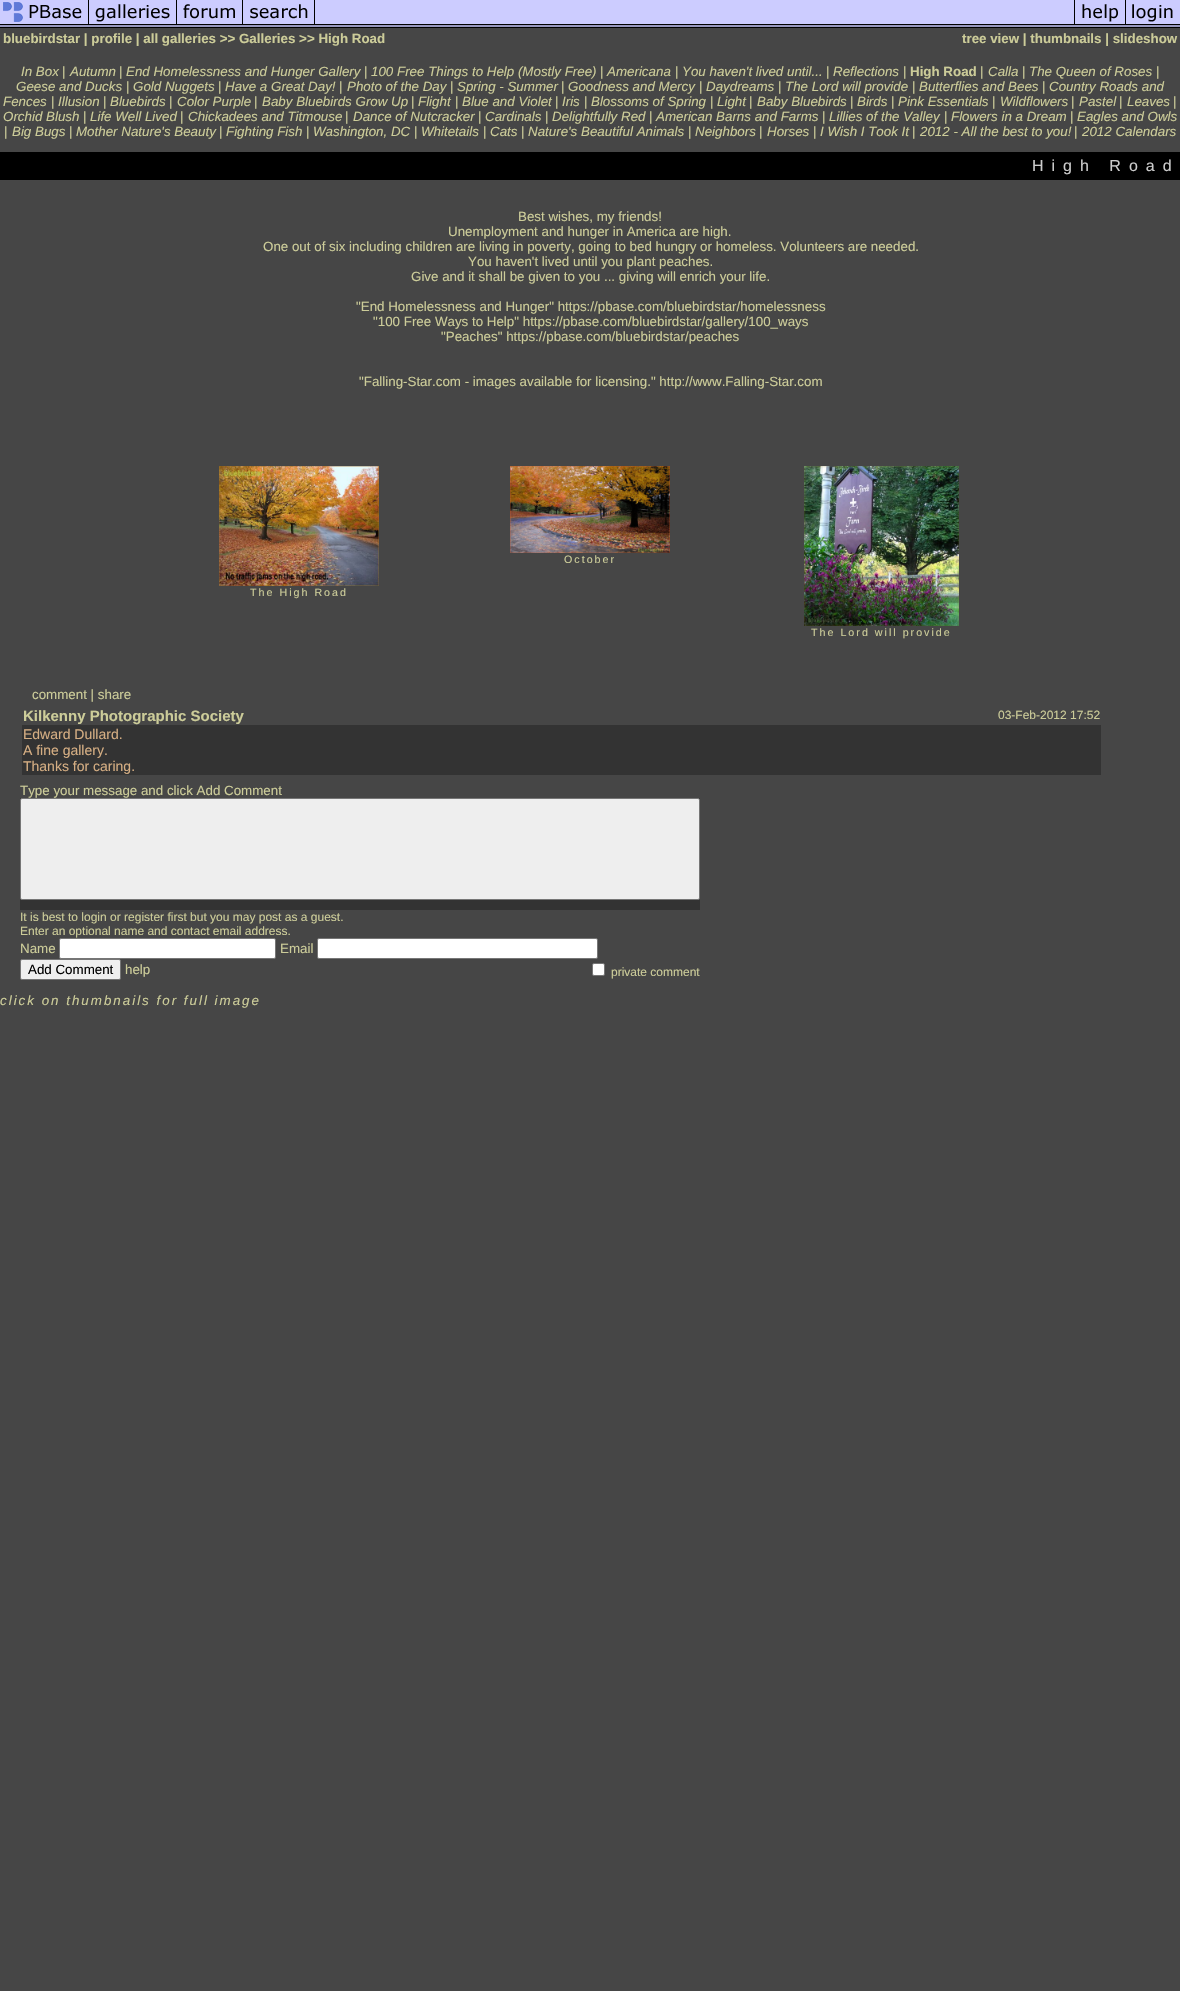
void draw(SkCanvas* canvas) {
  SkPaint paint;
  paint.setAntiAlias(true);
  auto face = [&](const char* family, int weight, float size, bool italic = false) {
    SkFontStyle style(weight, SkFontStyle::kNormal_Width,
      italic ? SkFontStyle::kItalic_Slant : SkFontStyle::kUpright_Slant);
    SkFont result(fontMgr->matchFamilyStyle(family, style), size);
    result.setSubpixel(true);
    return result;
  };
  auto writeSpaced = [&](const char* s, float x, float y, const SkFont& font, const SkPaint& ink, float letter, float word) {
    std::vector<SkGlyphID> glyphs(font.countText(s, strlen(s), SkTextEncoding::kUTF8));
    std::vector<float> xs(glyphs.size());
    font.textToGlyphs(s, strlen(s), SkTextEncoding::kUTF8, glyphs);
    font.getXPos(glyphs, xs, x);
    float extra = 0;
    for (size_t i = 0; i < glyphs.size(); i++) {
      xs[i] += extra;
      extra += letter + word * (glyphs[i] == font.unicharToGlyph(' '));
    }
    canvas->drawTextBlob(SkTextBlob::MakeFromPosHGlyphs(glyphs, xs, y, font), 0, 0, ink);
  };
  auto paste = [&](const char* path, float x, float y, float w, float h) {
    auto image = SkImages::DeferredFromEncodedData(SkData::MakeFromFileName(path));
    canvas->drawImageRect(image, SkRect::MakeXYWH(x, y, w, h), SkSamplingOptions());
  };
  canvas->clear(0xff464646);
  paste("img/1.png", 0, 0, 89, 28);
  paste("img/2.png", 89, 0, 88, 28);
  paste("img/3.png", 177, 0, 66, 28);
  paste("img/4.png", 243, 0, 72, 28);
  paste("img/5.png", 315, 0, 759, 28);
  paste("img/6.png", 1074, 0, 52, 28);
  paste("img/7.png", 1126, 0, 54, 28);
  paint.setColor(0xff000000);
  canvas->drawRect(SkRect::MakeXYWH(0, 152, 1180, 28), paint);
  paste("img/8.png", 510, 466, 160, 87);
  paste("img/9.png", 219, 466, 160, 120);
  paste("img/10.png", 804, 466, 155, 160);
  paint.setColor(0xff333333);
  canvas->drawRect(SkRect::MakeXYWH(22, 725, 1079, 50), paint);
  canvas->drawRect(SkRect::MakeXYWH(20, 798, 680, 112), paint);
  paint.setColor(0xffeeeeee);
  canvas->drawRoundRect(SkRect::MakeXYWH(20.5f, 798.5f, 679, 101), 1.5f, 1.5f, paint);
  paint.setStroke(true);
  paint.setStrokeWidth(1);
  paint.setColor(0xff767676);
  canvas->drawRoundRect(SkRect::MakeXYWH(20.5f, 798.5f, 679, 101), 1.5f, 1.5f, paint);
  paint.setStroke(false);
  paint.setColor(0xffffffff);
  canvas->drawRoundRect(SkRect::MakeXYWH(59.5f, 938.5f, 216, 20), 1.5f, 1.5f, paint);
  paint.setStroke(true);
  paint.setColor(0xff767676);
  canvas->drawRoundRect(SkRect::MakeXYWH(59.5f, 938.5f, 216, 20), 1.5f, 1.5f, paint);
  paint.setStroke(false);
  paint.setColor(0xffffffff);
  canvas->drawRoundRect(SkRect::MakeXYWH(317.5f, 938.5f, 280, 20), 1.5f, 1.5f, paint);
  paint.setStroke(true);
  paint.setColor(0xff767676);
  canvas->drawRoundRect(SkRect::MakeXYWH(317.5f, 938.5f, 280, 20), 1.5f, 1.5f, paint);
  paint.setStroke(false);
  paint.setColor(0xffefefef);
  canvas->drawRoundRect(SkRect::MakeXYWH(20.5f, 959.5f, 100, 20), 1.5f, 1.5f, paint);
  paint.setStroke(true);
  paint.setColor(0xff767676);
  canvas->drawRoundRect(SkRect::MakeXYWH(20.5f, 959.5f, 100, 20), 1.5f, 1.5f, paint);
  paint.setStroke(false);
  paint.setColor(0xffffffff);
  canvas->drawRoundRect(SkRect::MakeXYWH(592.5f, 963.5f, 12, 12), 1.5f, 1.5f, paint);
  paint.setStroke(true);
  paint.setColor(0xff767676);
  canvas->drawRoundRect(SkRect::MakeXYWH(592.5f, 963.5f, 12, 12), 1.5f, 1.5f, paint);
  auto f0 = face("Liberation Sans", 700, 13.35f);
  paint.setStroke(false);
  paint.setColor(0xffcccc99);
  canvas->drawString("bluebirdstar | profile | all galleries >> Galleries >> High Road", 3, 43, f0, paint);
  canvas->drawString("tree view | thumbnails | slideshow", 962, 43, f0, paint);
  auto f1 = face("Liberation Sans", 400, 13.35f, true);
  canvas->drawString("In Box", 21, 76, f1, paint);
  auto f2 = face("Liberation Sans", 400, 13.35f);
  canvas->drawString("|", 62, 76, f2, paint);
  canvas->drawString("Autumn", 70, 76, f1, paint);
  canvas->drawString("|", 119, 76, f2, paint);
  canvas->drawString("End Homelessness and Hunger Gallery", 126, 76, f1, paint);
  canvas->drawString("|", 364, 76, f2, paint);
  canvas->drawString("100 Free Things to Help (Mostly Free)", 371, 76, f1, paint);
  canvas->drawString("|", 600, 76, f2, paint);
  canvas->drawString("Americana", 607, 76, f1, paint);
  canvas->drawString("|", 675, 76, f2, paint);
  canvas->drawString("You haven't lived until...", 682, 76, f1, paint);
  canvas->drawString("|", 826, 76, f2, paint);
  canvas->drawString("Reflections", 833, 76, f1, paint);
  canvas->drawString("|", 903, 76, f2, paint);
  canvas->drawString("High Road", 910, 76, f0, paint);
  canvas->drawString("|", 980, 76, f2, paint);
  canvas->drawString("Calla", 988, 76, f1, paint);
  canvas->drawString("|", 1022, 76, f2, paint);
  canvas->drawString("The Queen of Roses", 1029, 76, f1, paint);
  canvas->drawString("|", 1156, 76, f2, paint);
  canvas->drawString("Geese and Ducks", 16, 91, f1, paint);
  canvas->drawString("|", 126, 91, f2, paint);
  canvas->drawString("Gold Nuggets", 133, 91, f1, paint);
  canvas->drawString("|", 218, 91, f2, paint);
  canvas->drawString("Have a Great Day!", 225, 91, f1, paint);
  canvas->drawString("|", 339, 91, f2, paint);
  canvas->drawString("Photo of the Day", 347, 91, f1, paint);
  canvas->drawString("|", 450, 91, f2, paint);
  canvas->drawString("Spring - Summer", 457, 91, f1, paint);
  canvas->drawString("|", 561, 91, f2, paint);
  canvas->drawString("Goodness and Mercy", 568, 91, f1, paint);
  canvas->drawString("|", 699, 91, f2, paint);
  canvas->drawString("Daydreams", 706, 91, f1, paint);
  canvas->drawString("|", 778, 91, f2, paint);
  canvas->drawString("The Lord will provide", 785, 91, f1, paint);
  canvas->drawString("|", 912, 91, f2, paint);
  canvas->drawString("Butterflies and Bees", 919, 91, f1, paint);
  canvas->drawString("|", 1042, 91, f2, paint);
  canvas->drawString("Country Roads and", 1049, 91, f1, paint);
  canvas->drawString("Fences", 3, 106, f1, paint);
  canvas->drawString("|", 51, 106, f2, paint);
  canvas->drawString("Illusion", 58, 106, f1, paint);
  canvas->drawString("|", 103, 106, f2, paint);
  canvas->drawString("Bluebirds", 110, 106, f1, paint);
  canvas->drawString("|", 169, 106, f2, paint);
  canvas->drawString("Color Purple", 177, 106, f1, paint);
  canvas->drawString("|", 254, 106, f2, paint);
  canvas->drawString("Baby Bluebirds Grow Up", 262, 106, f1, paint);
  canvas->drawString("|", 411, 106, f2, paint);
  canvas->drawString("Flight", 418, 106, f1, paint);
  canvas->drawString("|", 455, 106, f2, paint);
  canvas->drawString("Blue and Violet", 462, 106, f1, paint);
  canvas->drawString("|", 555, 106, f2, paint);
  canvas->drawString("Iris", 562, 106, f1, paint);
  canvas->drawString("|", 584, 106, f2, paint);
  canvas->drawString("Blossoms of Spring", 591, 106, f1, paint);
  canvas->drawString("|", 710, 106, f2, paint);
  canvas->drawString("Light", 717, 106, f1, paint);
  canvas->drawString("|", 749, 106, f2, paint);
  canvas->drawString("Baby Bluebirds", 757, 106, f1, paint);
  canvas->drawString("|", 850, 106, f2, paint);
  canvas->drawString("Birds", 857, 106, f1, paint);
  canvas->drawString("|", 891, 106, f2, paint);
  canvas->drawString("Pink Essentials", 898, 106, f1, paint);
  canvas->drawString("|", 992, 106, f2, paint);
  canvas->drawString("Wildflowers", 1000, 106, f1, paint);
  canvas->drawString("|", 1071, 106, f2, paint);
  canvas->drawString("Pastel", 1079, 106, f1, paint);
  canvas->drawString("|", 1119, 106, f2, paint);
  canvas->drawString("Leaves", 1127, 106, f1, paint);
  canvas->drawString("|", 1173, 106, f2, paint);
  canvas->drawString("Orchid Blush", 3, 121, f1, paint);
  canvas->drawString("|", 83, 121, f2, paint);
  canvas->drawString("Life Well Lived", 90, 121, f1, paint);
  canvas->drawString("|", 180, 121, f2, paint);
  canvas->drawString("Chickadees and Titmouse", 188, 121, f1, paint);
  canvas->drawString("|", 345, 121, f2, paint);
  canvas->drawString("Dance of Nutcracker", 353, 121, f1, paint);
  canvas->drawString("|", 478, 121, f2, paint);
  canvas->drawString("Cardinals", 485, 121, f1, paint);
  canvas->drawString("|", 545, 121, f2, paint);
  canvas->drawString("Delightfully Red", 552, 121, f1, paint);
  canvas->drawString("|", 649, 121, f2, paint);
  canvas->drawString("American Barns and Farms", 656, 121, f1, paint);
  canvas->drawString("|", 822, 121, f2, paint);
  canvas->drawString("Lillies of the Valley", 829, 121, f1, paint);
  canvas->drawString("|", 944, 121, f2, paint);
  canvas->drawString("Flowers in a Dream", 951, 121, f1, paint);
  canvas->drawString("|", 1070, 121, f2, paint);
  canvas->drawString("Eagles and Owls", 1077, 121, f1, paint);
  canvas->drawString("|", 4, 136, f2, paint);
  canvas->drawString("Big Bugs", 12, 136, f1, paint);
  canvas->drawString("|", 69, 136, f2, paint);
  canvas->drawString("Mother Nature's Beauty", 76, 136, f1, paint);
  canvas->drawString("|", 219, 136, f2, paint);
  canvas->drawString("Fighting Fish", 226, 136, f1, paint);
  canvas->drawString("|", 306, 136, f2, paint);
  canvas->drawString("Washington, DC", 313, 136, f1, paint);
  canvas->drawString("|", 414, 136, f2, paint);
  canvas->drawString("Whitetails", 421, 136, f1, paint);
  canvas->drawString("|", 483, 136, f2, paint);
  canvas->drawString("Cats", 490, 136, f1, paint);
  canvas->drawString("|", 521, 136, f2, paint);
  canvas->drawString("Nature's Beautiful Animals", 528, 136, f1, paint);
  canvas->drawString("|", 688, 136, f2, paint);
  canvas->drawString("Neighbors", 695, 136, f1, paint);
  canvas->drawString("|", 759, 136, f2, paint);
  canvas->drawString("Horses", 767, 136, f1, paint);
  canvas->drawString("|", 813, 136, f2, paint);
  canvas->drawString("I Wish I Took It", 820, 136, f1, paint);
  canvas->drawString("|", 912, 136, f2, paint);
  canvas->drawString("2012 - All the best to you!", 920, 136, f1, paint);
  canvas->drawString("|", 1074, 136, f2, paint);
  canvas->drawString("2012 Calendars", 1082, 136, f1, paint);
  auto f3 = face("Liberation Sans", 400, 16);
  paint.setColor(0xffcccccc);
  writeSpaced("High Road", 1032, 171, f3, paint, 8, 0);
  paint.setColor(0xffcccc99);
  {
    const struct { const char* s; float x, y; } items[] = {
      {"Best wishes, my friends!", 518, 221},
      {"Unemployment and hunger in America are high.", 448, 236},
      {"One out of six including children are living in poverty, going to bed hungry or homeless. Volunteers are needed.", 263, 251},
      {"You haven't lived until you plant peaches.", 468, 266},
      {"Give and it shall be given to you ... giving will enrich your life.", 411, 281},
      {"\"End Homelessness and Hunger\" https://pbase.com/bluebirdstar/homelessness", 356, 311},
      {"\"100 Free Ways to Help\" https://pbase.com/bluebirdstar/gallery/100_ways", 373, 326},
      {"\"Peaches\" https://pbase.com/bluebirdstar/peaches", 441, 341},
      {"\"Falling-Star.com - images available for licensing.\" http://www.Falling-Star.com", 359, 386},
    };
    for (auto [s, x, y] : items) {
      canvas->drawString(s, x, y, f2, paint);
    }
  }
  auto f4 = face("Liberation Sans", 400, 10.7f);
  {
    const struct { const char* s; float x, y; } items[] = {
      {"October", 564, 563},
      {"The High Road", 250, 596},
      {"The Lord will provide", 811, 636},
    };
    for (auto [s, x, y] : items) {
      writeSpaced(s, x, y, f4, paint, 2, 0);
    }
  }
  canvas->drawString("comment | share", 32, 699, f2, paint);
  auto f5 = face("Liberation Sans", 700, 15);
  canvas->drawString("Kilkenny Photographic Society", 23, 721, f5, paint);
  auto f6 = face("Liberation Sans", 400, 12);
  canvas->drawString("03-Feb-2012 17:52", 998, 719, f6, paint);
  auto f7 = face("Liberation Sans", 400, 14);
  paint.setColor(0xffd5ae83);
  {
    const struct { const char* s; float x, y; } items[] = {
      {"Edward Dullard.", 23, 739},
      {"A fine gallery.", 23, 755},
      {"Thanks for caring.", 23, 771},
    };
    for (auto [s, x, y] : items) {
      canvas->drawString(s, x, y, f7, paint);
    }
  }
  paint.setColor(0xffcccc99);
  canvas->drawString("Type your message and click Add Comment", 20, 795, f2, paint);
  canvas->drawString("It is best to login or register first but you may post as a guest.", 20, 921, f6, paint);
  canvas->drawString("Enter an optional name and contact email address.", 20, 935, f6, paint);
  canvas->drawString("Name", 20, 953, f2, paint);
  canvas->drawString("Email", 280, 953, f2, paint);
  paint.setColor(0xff000000);
  canvas->drawString("Add Comment", 28, 974, f2, paint);
  paint.setColor(0xffcccc99);
  canvas->drawString("help", 125, 974, f2, paint);
  canvas->drawString("private comment", 611, 976, f6, paint);
  writeSpaced("click on thumbnails for full image", 0, 1005, f1, paint, 2, 0);
}
